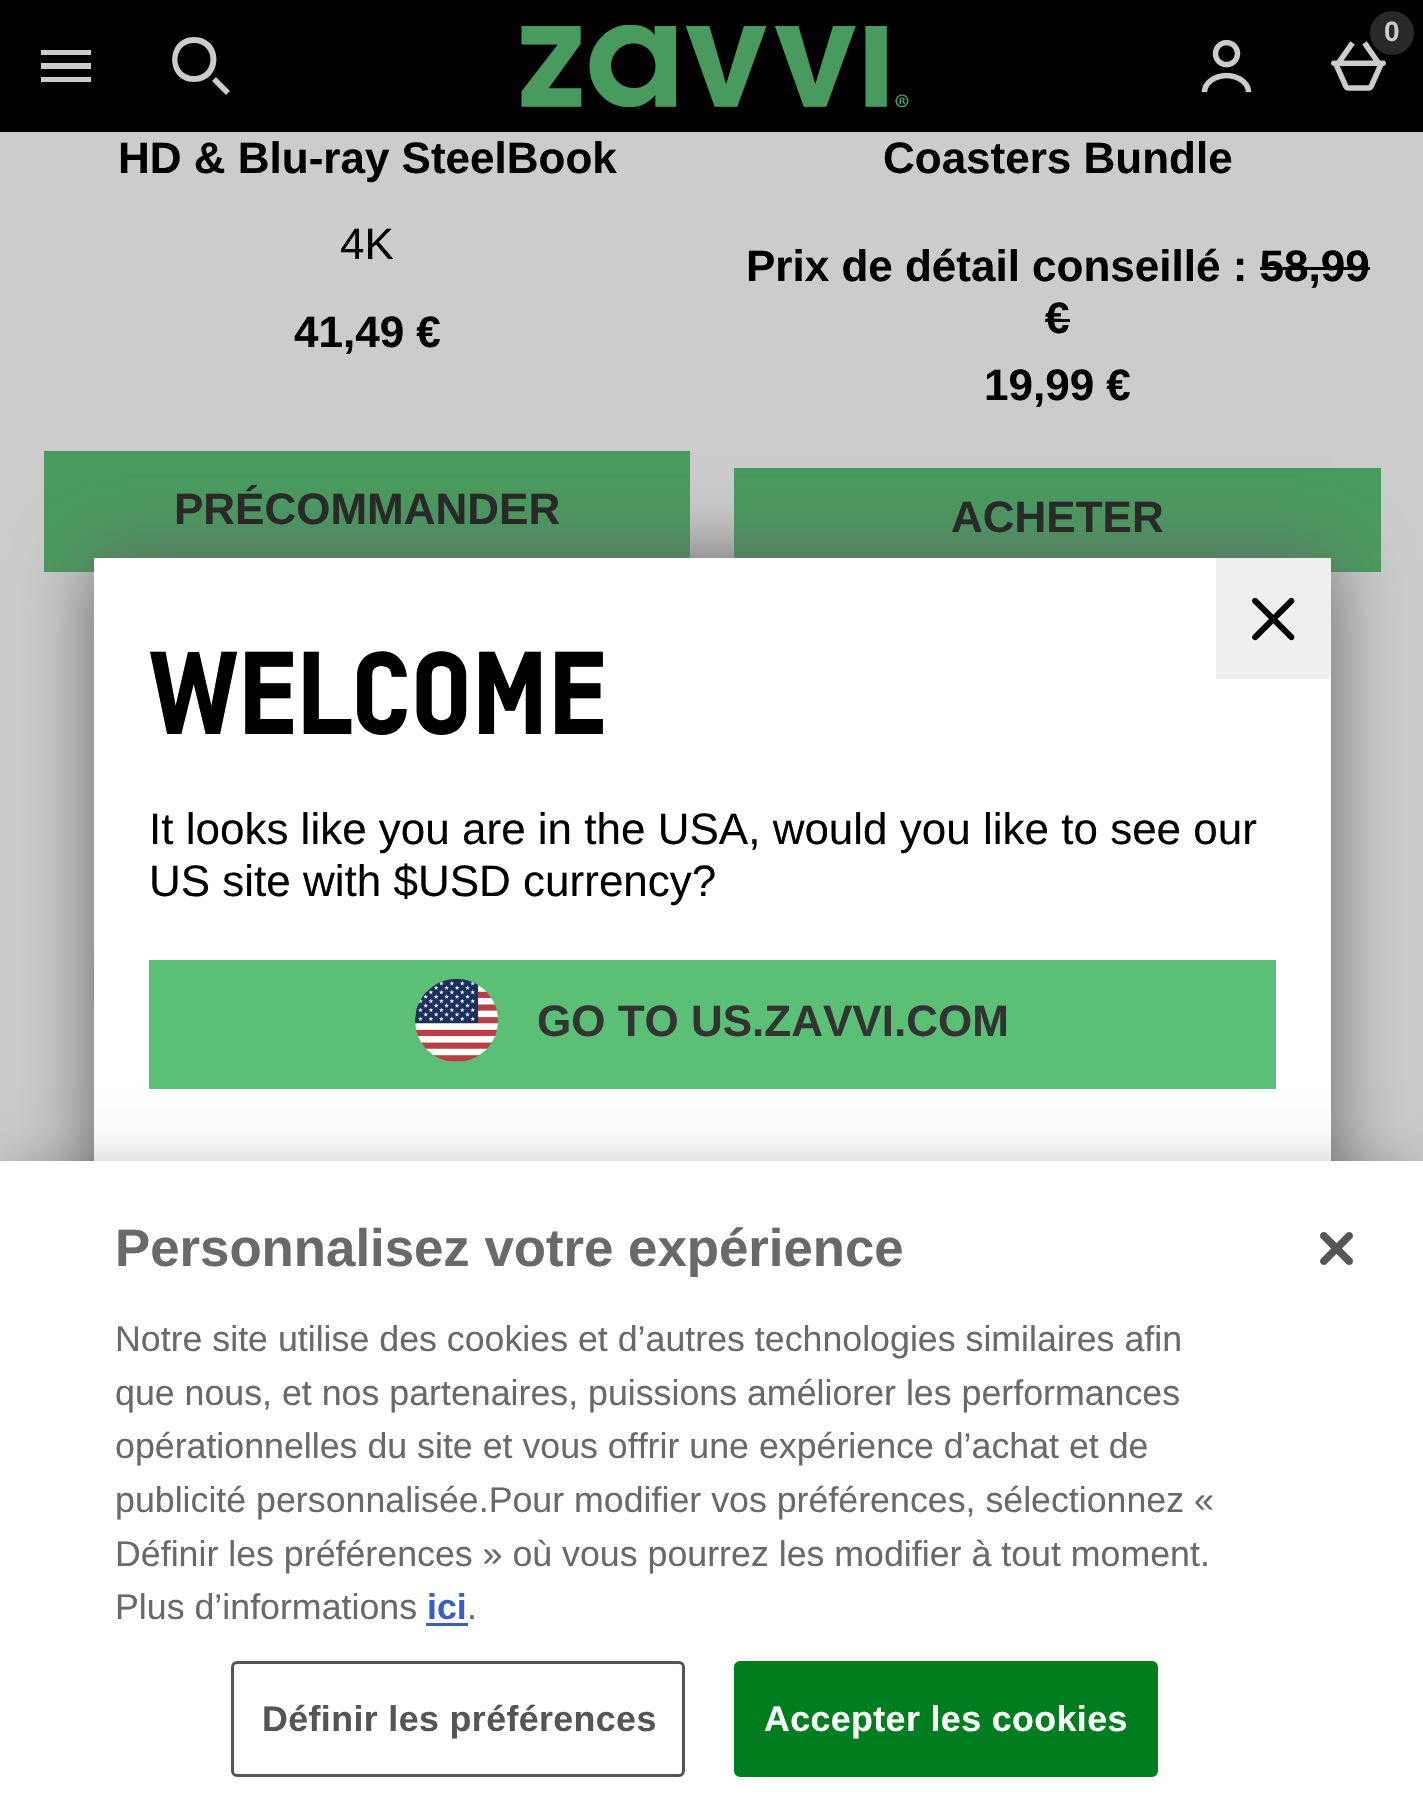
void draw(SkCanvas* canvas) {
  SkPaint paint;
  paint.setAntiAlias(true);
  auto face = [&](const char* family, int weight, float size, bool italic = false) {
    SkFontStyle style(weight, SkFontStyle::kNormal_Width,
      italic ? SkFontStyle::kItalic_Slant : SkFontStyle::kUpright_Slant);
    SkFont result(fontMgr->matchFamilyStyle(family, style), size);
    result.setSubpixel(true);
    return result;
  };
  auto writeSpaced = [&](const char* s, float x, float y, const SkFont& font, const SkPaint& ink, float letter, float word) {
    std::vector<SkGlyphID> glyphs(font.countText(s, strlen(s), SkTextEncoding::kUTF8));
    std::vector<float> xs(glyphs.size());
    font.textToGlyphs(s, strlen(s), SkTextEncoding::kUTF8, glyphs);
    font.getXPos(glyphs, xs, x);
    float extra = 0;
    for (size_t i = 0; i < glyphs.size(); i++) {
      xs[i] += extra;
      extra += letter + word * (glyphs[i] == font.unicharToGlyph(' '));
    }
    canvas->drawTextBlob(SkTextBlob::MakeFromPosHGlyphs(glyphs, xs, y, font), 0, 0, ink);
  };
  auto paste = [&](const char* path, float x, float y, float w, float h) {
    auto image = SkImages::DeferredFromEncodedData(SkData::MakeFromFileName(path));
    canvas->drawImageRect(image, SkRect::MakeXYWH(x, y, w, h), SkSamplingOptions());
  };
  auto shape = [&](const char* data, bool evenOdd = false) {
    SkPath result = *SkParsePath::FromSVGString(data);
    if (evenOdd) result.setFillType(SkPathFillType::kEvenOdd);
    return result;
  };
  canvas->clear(0xffcccccc);
  paint.setColor(0xff000000);
  canvas->drawRect(SkRect::MakeXYWH(0, 0, 1423, 132), paint);
  paint.setColor(0xffcccccc);
  canvas->drawPath(shape("M41 63H91V69H41ZM41 50H91V55H41ZM41 77H91V82H41Z"), paint);
  canvas->drawPath(shape("M194 76C216 76 216 43 194 43C172 43 172 76 194 76ZM194 82C165 82 165 37 194 37C224 37 224 82 194 82ZM230 91L226 95L212 81L216 77Z"), paint);
  paste("img/1.png", 521, 25, 388, 82);
  paste("img/2.png", 1201, 39, 51, 54);
  paste("img/3.png", 1331, 41, 55, 50);
  paint.setColor(0xff292929);
  canvas->drawCircle(1392, 33, 22, paint);
  {
    const struct { float x, y, w, h; SkColor color; } items[] = {
      {44, 451, 646, 121, 0xff499a5e},
      {1260, 267, 110, 3, 0xff000000},
      {1045, 319, 25, 3, 0xff000000},
      {734, 468, 647, 104, 0xff499a5e},
    };
    for (auto [x, y, w, h, color] : items) {
      paint.setColor(color);
      canvas->drawRect(SkRect::MakeXYWH(x, y, w, h), paint);
    }
  }
  paste("img/4.png", 93, 636, 1, 525);
  paint.setColor(0xff666666);
  paint.setMaskFilter(SkMaskFilter::MakeBlur(kNormal_SkBlurStyle, 34.5f));
  canvas->drawRect(SkRect::MakeXYWH(94, 558, 1237, 704), paint);
  paint.setMaskFilter(nullptr);
  paint.setColor(0xffffffff);
  canvas->drawRect(SkRect::MakeXYWH(94, 558, 1237, 603), paint);
  paint.setColor(0xffefefef);
  canvas->drawRect(SkRect::MakeXYWH(1216, 558, 115, 121), paint);
  paste("img/5.png", 1252, 597, 43, 44);
  paint.setColor(0xff5bc075);
  canvas->drawRect(SkRect::MakeXYWH(149, 960, 1127, 129), paint);
  paste("img/6.png", 415, 979, 83, 83);
  paint.setColor(0x33000000);
  paint.setMaskFilter(SkMaskFilter::MakeBlur(kNormal_SkBlurStyle, 25));
  canvas->drawRect(SkRect::MakeXYWH(0, 1161, 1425, 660), paint);
  paint.setMaskFilter(nullptr);
  paint.setColor(0xffffffff);
  canvas->drawRect(SkRect::MakeXYWH(0, 1161, 1423, 657), paint);
  paint.setColor(0xff3860be);
  canvas->drawRect(SkRect::MakeXYWH(426, 1623, 42, 3), paint);
  paint.setStroke(true);
  paint.setStrokeWidth(3);
  paint.setColor(0xff555555);
  canvas->drawRoundRect(SkRect::MakeXYWH(232.5f, 1662.5f, 451, 113), 4.5f, 4.5f, paint);
  paint.setStroke(false);
  paint.setColor(0xff007d1e);
  canvas->drawRoundRect(SkRect::MakeXYWH(735.5f, 1662.5f, 421, 113), 4.5f, 4.5f, paint);
  paint.setStroke(true);
  canvas->drawRoundRect(SkRect::MakeXYWH(735.5f, 1662.5f, 421, 113), 4.5f, 4.5f, paint);
  paste("img/7.png", 1320, 1232, 33, 33);
  auto f0 = face("Liberation Sans", 700, 28);
  paint.setStroke(false);
  paint.setColor(0xffcccccc);
  canvas->drawString("0", 1384, 41, f0, paint);
  auto f1 = face("Liberation Sans", 700, 44);
  paint.setColor(0xff000000);
  canvas->drawString("HD & Blu-ray SteelBook", 118, 173, f1, paint);
  auto f2 = face("Liberation Sans", 400, 44);
  canvas->drawString("4K", 340, 259, f2, paint);
  canvas->drawString("41,49 €", 294, 347, f1, paint);
  paint.setColor(0xff292929);
  canvas->drawString("PRÉCOMMANDER", 174, 524, f1, paint);
  paint.setColor(0xff000000);
  {
    const struct { const char* s; float x, y; } items[] = {
      {"Coasters Bundle", 883, 173},
      {"Prix de détail conseillé : 58,99", 746, 281},
      {"€", 1045, 333},
      {"19,99 €", 984, 400},
    };
    for (auto [s, x, y] : items) {
      canvas->drawString(s, x, y, f1, paint);
    }
  }
  paint.setColor(0xff292929);
  canvas->drawString("ACHETER", 951, 532, f1, paint);
  auto f3 = face("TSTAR", 900, 115.5f);
  paint.setColor(0xff000000);
  canvas->drawString("WELCOME", 149, 734, f3, paint);
  canvas->drawString("It looks like you are in the USA, would you like to see our", 149, 844, f2, paint);
  canvas->drawString("US site with $USD currency?", 149, 896, f2, paint);
  paint.setColor(0xff333333);
  canvas->drawString("GO TO US.ZAVVI.COM", 537, 1036, f1, paint);
  auto f4 = face("Liberation Sans", 700, 52.75f);
  paint.setColor(0xff696969);
  canvas->drawString("Personnalisez votre expérience", 115, 1266, f4, paint);
  auto f5 = face("Liberation Sans", 400, 35.75f);
  {
    const struct { const char* s; float x, y; } items[] = {
      {"Notre site utilise des cookies et d’autres technologies similaires afin", 115, 1351},
      {"que nous, et nos partenaires, puissions améliorer les performances", 115, 1405},
      {"opérationnelles du site et vous offrir une expérience d’achat et de", 115, 1458},
      {"publicité personnalisée.Pour modifier vos préférences, sélectionnez «", 115, 1512},
      {"Définir les préférences » où vous pourrez les modifier à tout moment.", 115, 1566},
      {"Plus d’informations", 115, 1619},
    };
    for (auto [s, x, y] : items) {
      canvas->drawString(s, x, y, f5, paint);
    }
  }
  auto f6 = face("Liberation Sans", 700, 35.75f);
  paint.setColor(0xff3860be);
  canvas->drawString("ici", 427, 1619, f6, paint);
  paint.setColor(0xff696969);
  canvas->drawString(".", 467, 1619, f5, paint);
  paint.setColor(0xff555555);
  writeSpaced("Définir les préférences", 262, 1731, f6, paint, 0.4f, 0);
  paint.setColor(0xffffffff);
  writeSpaced("Accepter les cookies", 764, 1731, f6, paint, 0.4f, 0);
}
